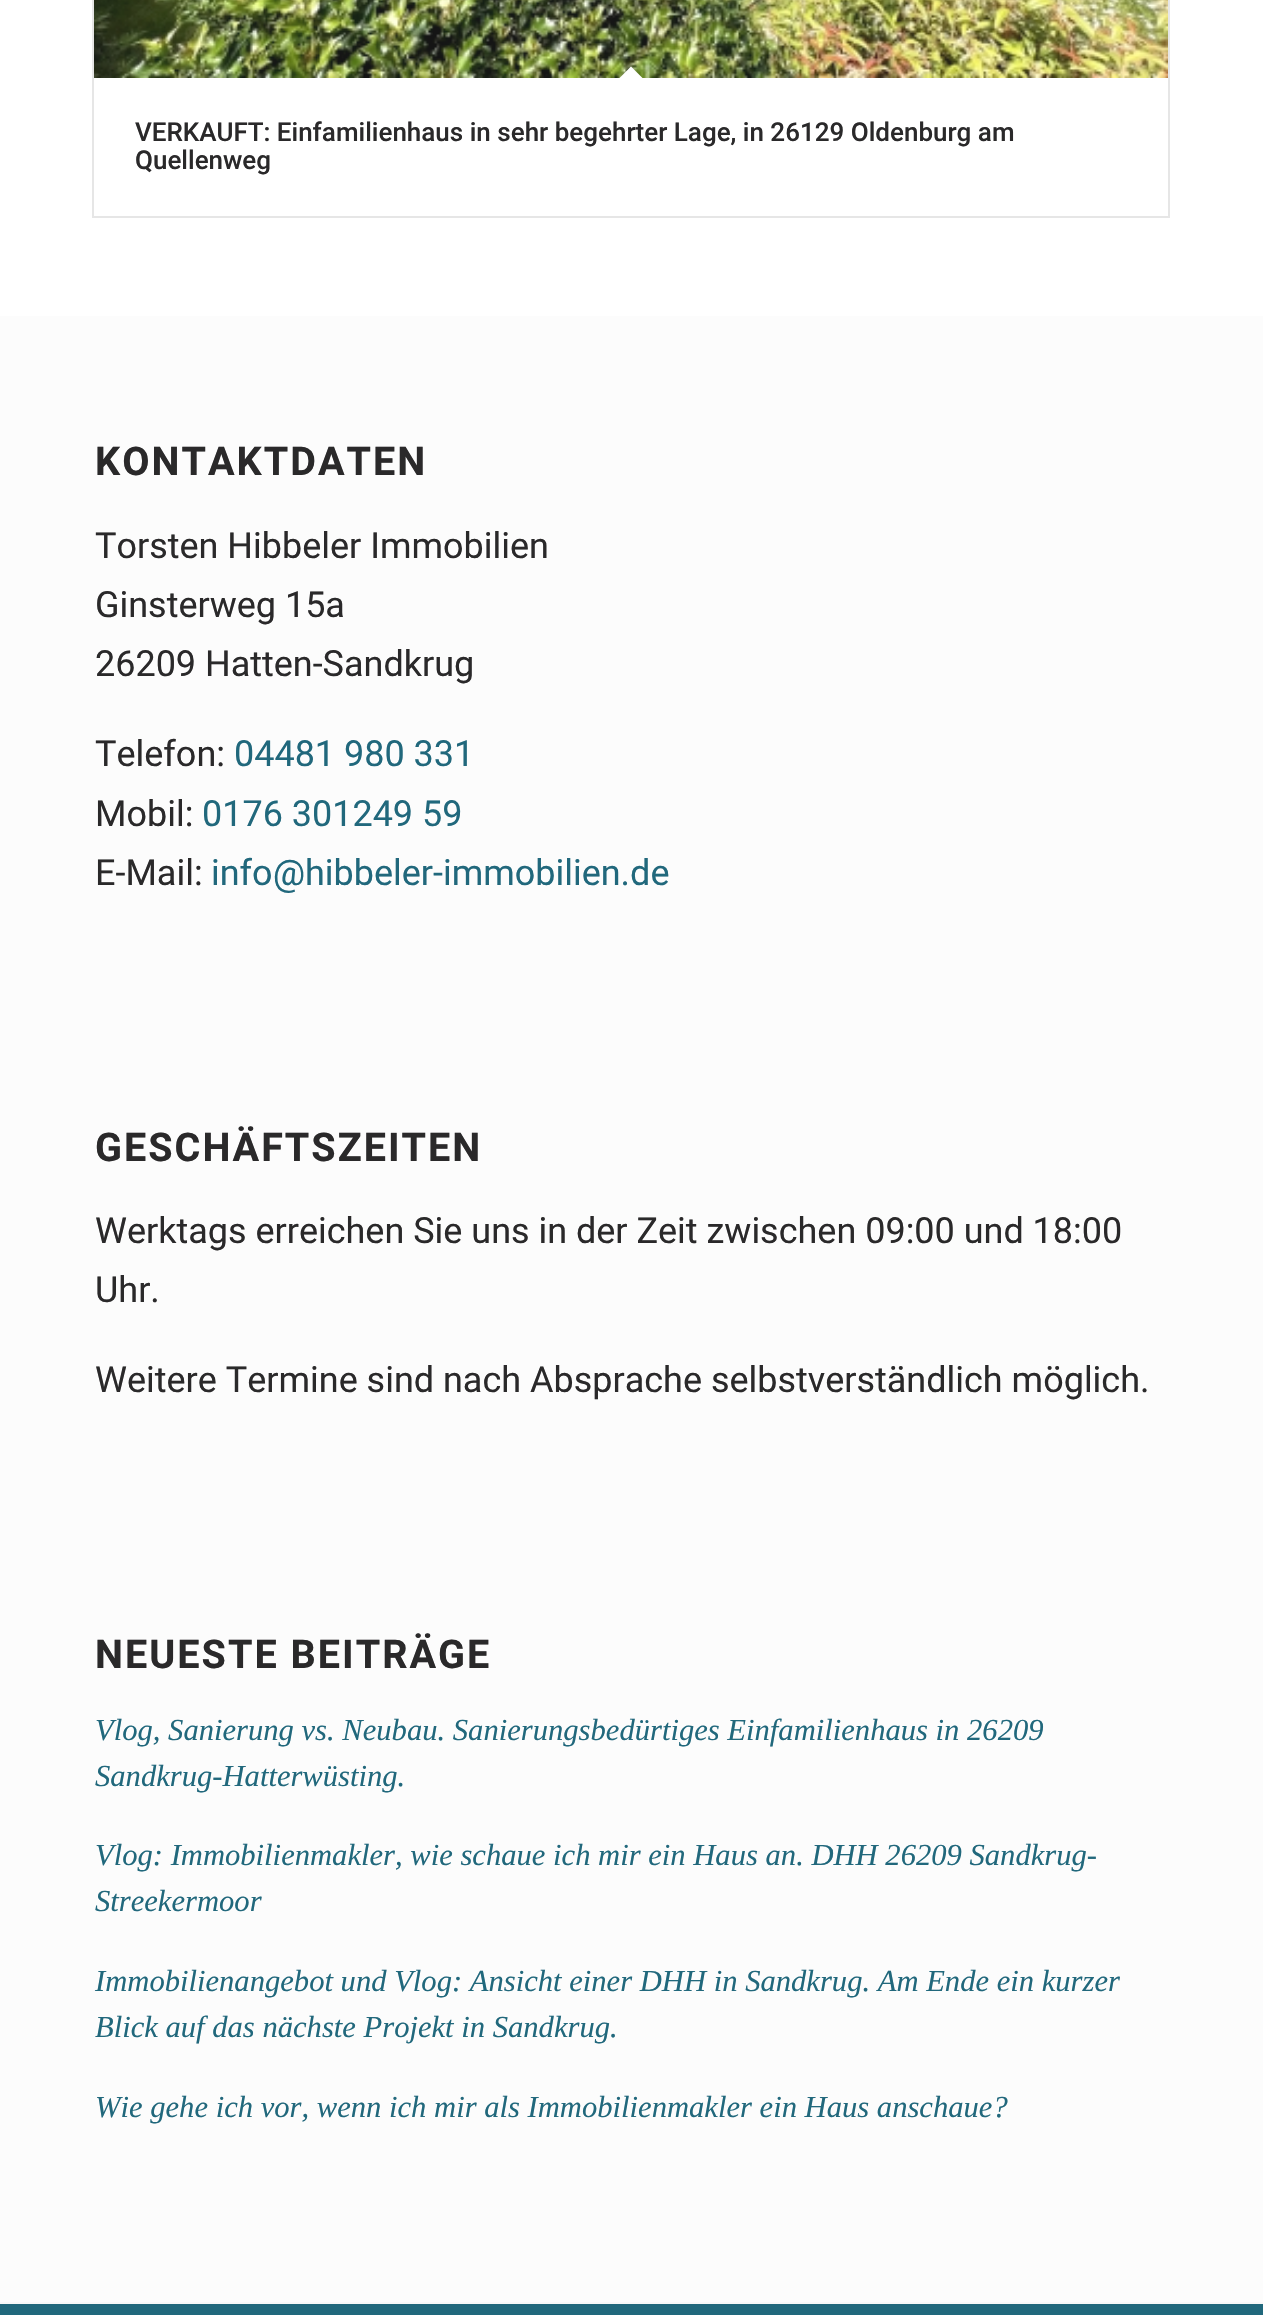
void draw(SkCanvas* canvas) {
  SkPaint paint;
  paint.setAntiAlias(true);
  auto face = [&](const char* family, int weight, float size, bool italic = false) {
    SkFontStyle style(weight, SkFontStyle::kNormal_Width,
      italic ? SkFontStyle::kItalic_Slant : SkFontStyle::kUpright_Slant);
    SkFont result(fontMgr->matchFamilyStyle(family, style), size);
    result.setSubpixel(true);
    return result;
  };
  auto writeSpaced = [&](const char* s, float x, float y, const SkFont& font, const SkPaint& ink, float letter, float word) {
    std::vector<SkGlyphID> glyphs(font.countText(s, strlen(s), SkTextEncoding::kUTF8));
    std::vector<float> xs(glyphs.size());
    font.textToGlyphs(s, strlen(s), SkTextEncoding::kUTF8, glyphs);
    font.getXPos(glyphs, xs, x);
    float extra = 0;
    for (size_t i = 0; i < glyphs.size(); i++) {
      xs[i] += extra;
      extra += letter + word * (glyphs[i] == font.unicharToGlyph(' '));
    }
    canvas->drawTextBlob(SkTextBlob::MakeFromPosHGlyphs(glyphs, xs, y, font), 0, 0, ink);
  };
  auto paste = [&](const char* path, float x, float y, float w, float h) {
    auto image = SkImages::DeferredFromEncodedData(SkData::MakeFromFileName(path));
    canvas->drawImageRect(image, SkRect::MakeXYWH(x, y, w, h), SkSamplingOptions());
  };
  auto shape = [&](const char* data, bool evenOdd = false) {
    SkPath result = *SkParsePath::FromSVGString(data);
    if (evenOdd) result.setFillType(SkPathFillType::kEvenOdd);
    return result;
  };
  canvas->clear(0xffffffff);
  paint.setStroke(true);
  paint.setStrokeWidth(2);
  paint.setColor(0xffe6e6e6);
  canvas->drawRect(SkRect::MakeXYWH(93, -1, 1076, 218), paint);
  paste("img/1.png", 94, 0, 1074, 78);
  paint.setStroke(false);
  paint.setColor(0xffffffff);
  canvas->drawPath(shape("M631 66.5L645 80.5L631 94.5L617 80.5Z"), paint);
  {
    const struct { float x, y, w, h; SkColor color; } items[] = {
      {0, 316, 1263, 1986, 0xfffcfcfc},
      {0, 2304, 1263, 11, 0xff21687c},
      {0, 2302, 1263, 2, 0xfff8f8f8},
    };
    for (auto [x, y, w, h, color] : items) {
      paint.setColor(color);
      canvas->drawRect(SkRect::MakeXYWH(x, y, w, h), paint);
    }
  }
  auto f0 = face("Roboto", 500, 26);
  paint.setColor(0xff2a292a);
  canvas->drawString("VERKAUFT: Einfamilienhaus in sehr begehrter Lage, in 26129 Oldenburg am", 135, 141, f0, paint);
  canvas->drawString("Quellenweg", 135, 169, f0, paint);
  auto f1 = face("Roboto", 700, 39.6f);
  writeSpaced("KONTAKTDATEN", 95, 475, f1, paint, 2, 0);
  auto f2 = face("Roboto", 400, 36);
  {
    const struct { const char* s; float x, y; } items[] = {
      {"Torsten Hibbeler Immobilien", 95, 558},
      {"Ginsterweg 15a", 95, 617},
      {"26209 Hatten-Sandkrug", 95, 676},
      {"Telefon:", 95, 766},
    };
    for (auto [s, x, y] : items) {
      canvas->drawString(s, x, y, f2, paint);
    }
  }
  paint.setColor(0xff21687c);
  canvas->drawString("04481 980 331", 234, 766, f2, paint);
  paint.setColor(0xff2a292a);
  canvas->drawString("Mobil:", 95, 826, f2, paint);
  paint.setColor(0xff21687c);
  canvas->drawString("0176 301249 59", 202, 826, f2, paint);
  paint.setColor(0xff2a292a);
  canvas->drawString("E-Mail:", 95, 885, f2, paint);
  paint.setColor(0xff21687c);
  canvas->drawString("info@hibbeler-immobilien.de", 211, 885, f2, paint);
  paint.setColor(0xff2a292a);
  writeSpaced("GESCHÄFTSZEITEN", 95, 1161, f1, paint, 2, 0);
  {
    const struct { const char* s; float x, y; } items[] = {
      {"Werktags erreichen Sie uns in der Zeit zwischen 09:00 und 18:00", 95, 1243},
      {"Uhr.", 95, 1302},
      {"Weitere Termine sind nach Absprache selbstverständlich möglich.", 95, 1392},
    };
    for (auto [s, x, y] : items) {
      canvas->drawString(s, x, y, f2, paint);
    }
  }
  writeSpaced("NEUESTE BEITRÄGE", 95, 1668, f1, paint, 2, 0);
  auto f3 = face("Liberation Serif", 400, 30.6f, true);
  paint.setColor(0xff21687c);
  {
    const struct { const char* s; float x, y; } items[] = {
      {"Vlog, Sanierung vs. Neubau. Sanierungsbedürtiges Einfamilienhaus in 26209", 95, 1740},
      {"Sandkrug-Hatterwüsting.", 95, 1786},
      {"Vlog: Immobilienmakler, wie schaue ich mir ein Haus an. DHH 26209 Sandkrug-", 95, 1865},
      {"Streekermoor", 95, 1911},
      {"Immobilienangebot und Vlog: Ansicht einer DHH in Sandkrug. Am Ende ein kurzer", 95, 1991},
      {"Blick auf das nächste Projekt in Sandkrug.", 95, 2037},
      {"Wie gehe ich vor, wenn ich mir als Immobilienmakler ein Haus anschaue?", 95, 2117},
    };
    for (auto [s, x, y] : items) {
      canvas->drawString(s, x, y, f3, paint);
    }
  }
}
